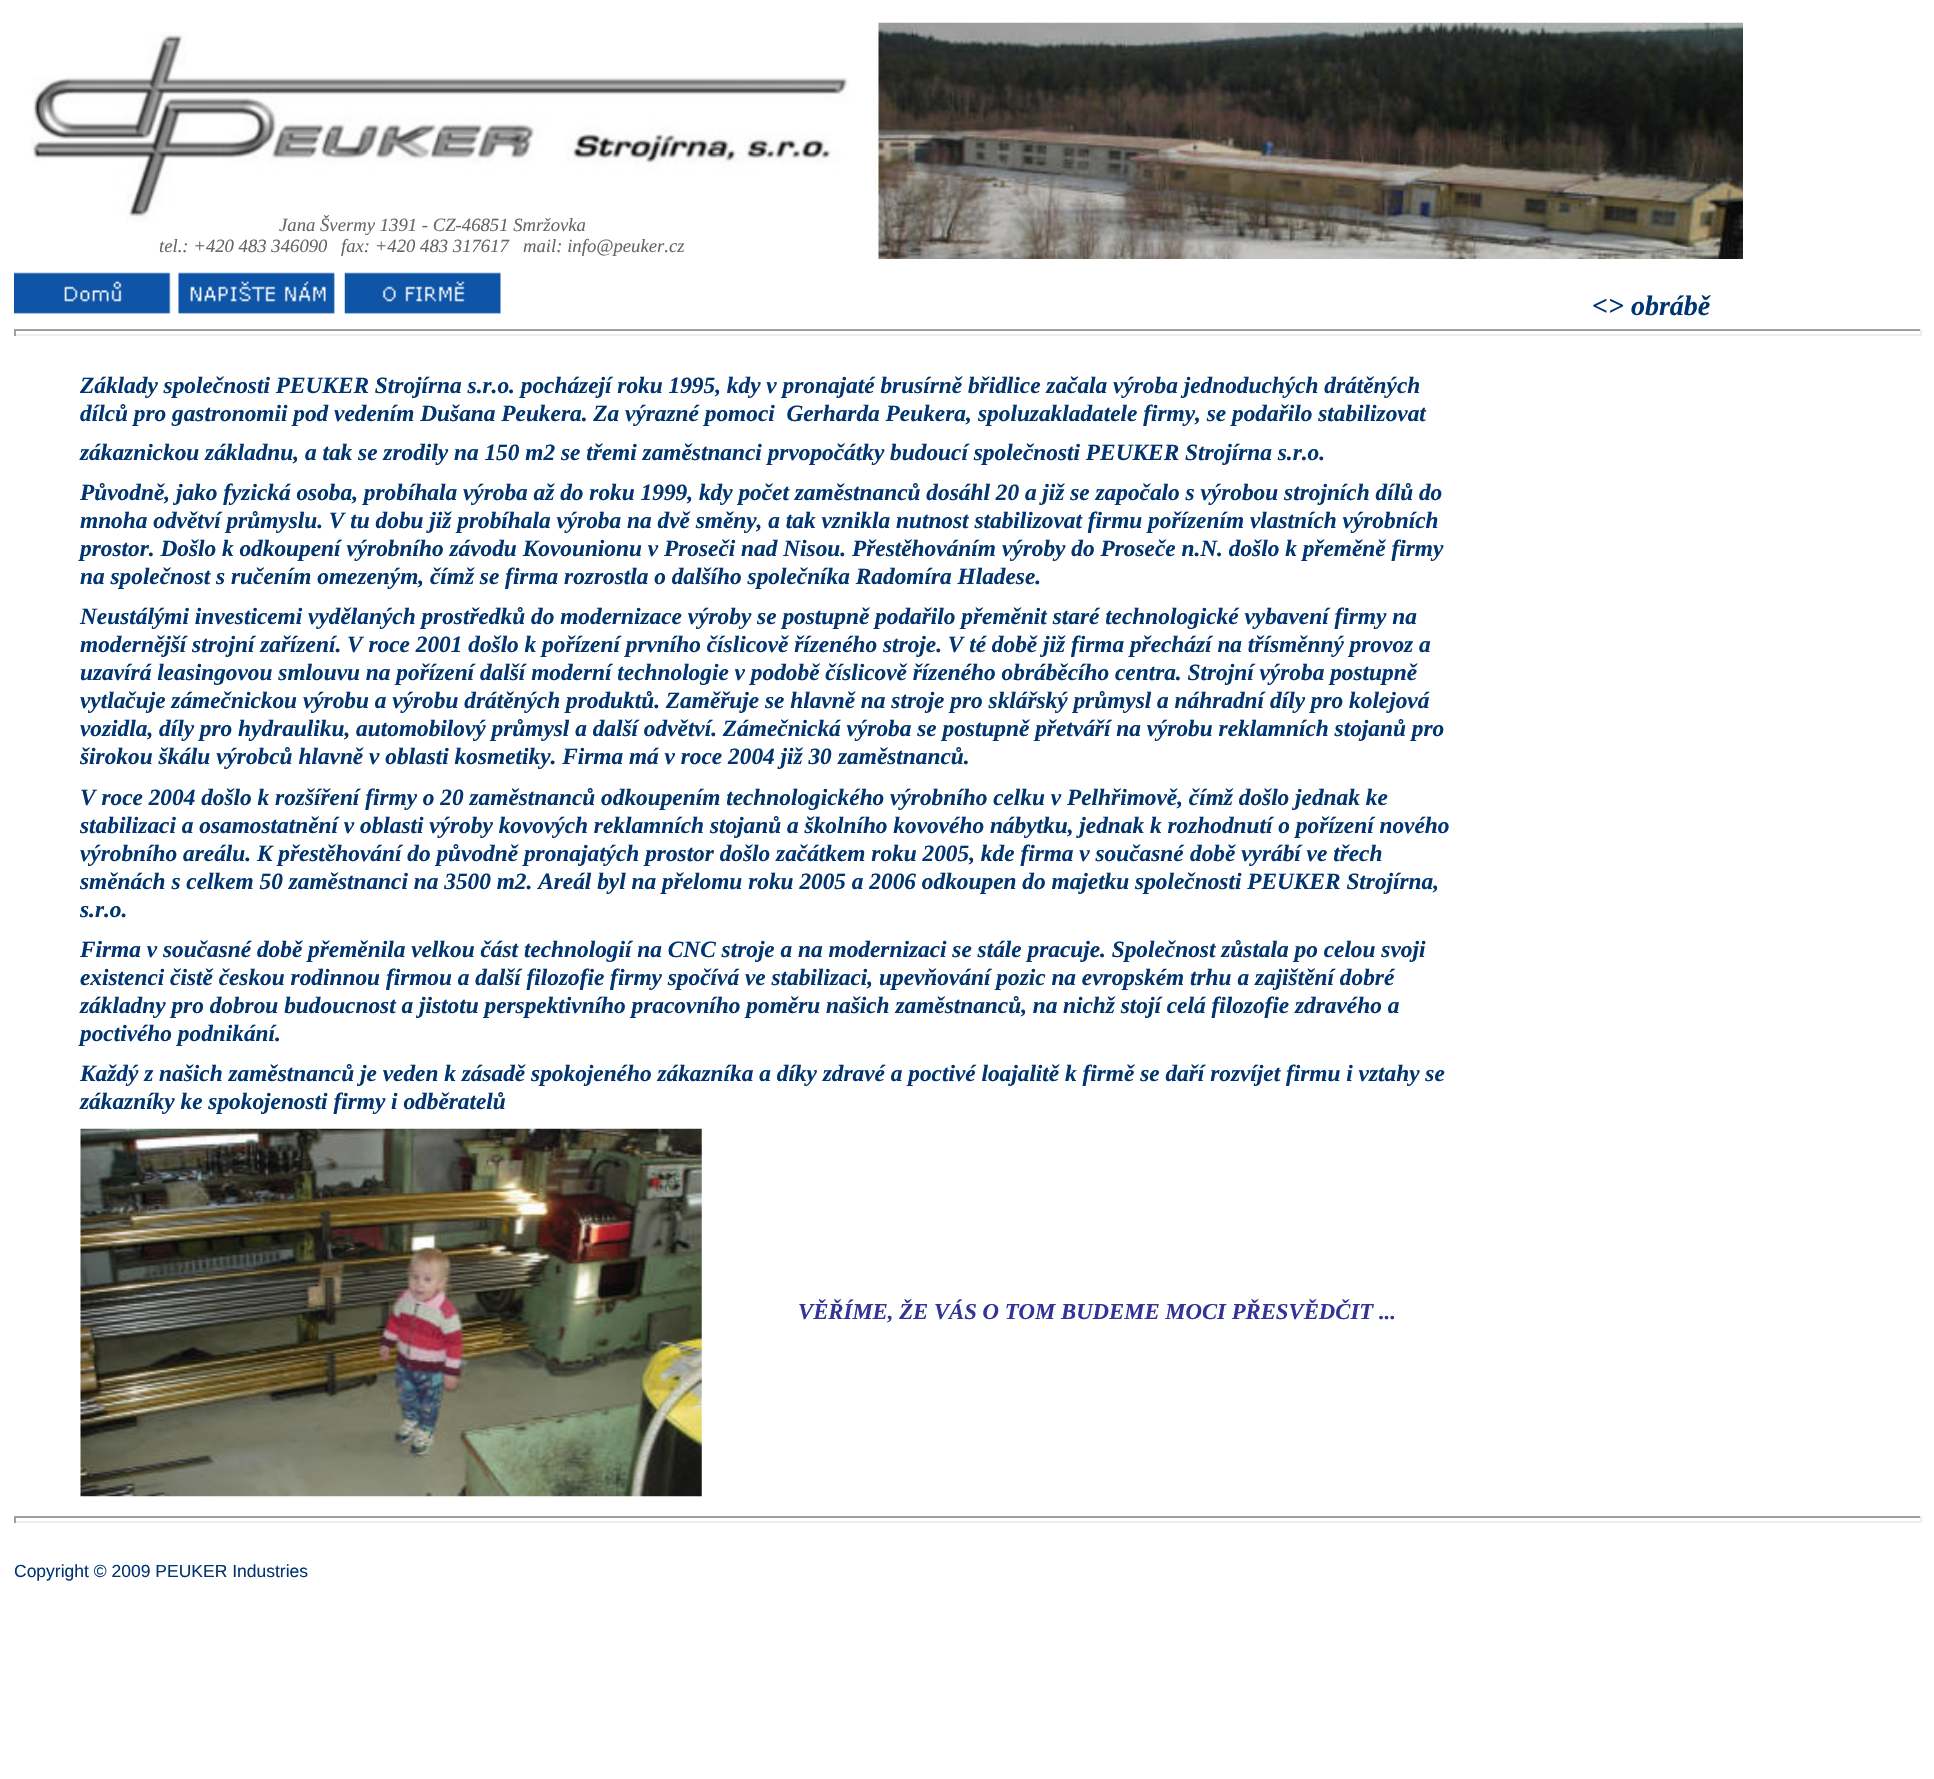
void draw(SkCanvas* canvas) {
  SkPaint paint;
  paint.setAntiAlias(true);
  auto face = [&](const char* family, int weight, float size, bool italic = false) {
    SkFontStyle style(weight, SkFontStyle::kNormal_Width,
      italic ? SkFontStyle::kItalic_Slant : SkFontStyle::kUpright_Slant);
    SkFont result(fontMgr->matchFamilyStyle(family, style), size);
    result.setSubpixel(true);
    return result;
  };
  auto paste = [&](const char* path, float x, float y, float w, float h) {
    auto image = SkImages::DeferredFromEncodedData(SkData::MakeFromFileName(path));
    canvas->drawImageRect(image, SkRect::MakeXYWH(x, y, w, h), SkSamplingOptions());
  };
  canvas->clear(0xffffffff);
  paste("img/1.png", 31, 32, 818, 190);
  paste("img/2.png", 878, 22, 865, 237);
  paste("img/3.png", 14, 272, 157, 42);
  paste("img/4.png", 178, 272, 157, 42);
  paste("img/5.png", 344, 272, 157, 42);
  {
    const struct { float x, y, w, h; SkColor color; } items[] = {
      {14, 329, 1908, 2, 0xff9f9f9f},
      {1920, 329, 2, 7, 0xffeeeeee},
      {14, 334, 1908, 2, 0xffeeeeee},
      {14, 329, 2, 7, 0xff9f9f9f},
    };
    for (auto [x, y, w, h, color] : items) {
      paint.setColor(color);
      canvas->drawRect(SkRect::MakeXYWH(x, y, w, h), paint);
    }
  }
  paste("img/6.png", 80, 1128, 622, 369);
  {
    const struct { float x, y, w, h; SkColor color; } items[] = {
      {14, 1516, 1908, 2, 0xff9f9f9f},
      {1920, 1516, 2, 7, 0xffeeeeee},
      {14, 1521, 1908, 2, 0xffeeeeee},
      {14, 1516, 2, 7, 0xff9f9f9f},
    };
    for (auto [x, y, w, h, color] : items) {
      paint.setColor(color);
      canvas->drawRect(SkRect::MakeXYWH(x, y, w, h), paint);
    }
  }
  auto f0 = face("Liberation Serif", 400, 18.7f, true);
  paint.setColor(0xff666666);
  {
    const struct { const char* s; float x, y; } items[] = {
      {"Jana Švermy 1391 - CZ-46851 Smržovka", 279, 231},
      {"tel.: +420 483 346090", 159, 252},
      {"fax: +420 483 317617", 341, 252},
      {"mail: info@peuker.cz", 523, 252},
    };
    for (auto [s, x, y] : items) {
      canvas->drawString(s, x, y, f0, paint);
    }
  }
  auto f1 = face("Liberation Serif", 700, 28, true);
  paint.setColor(0xff003572);
  canvas->drawString("<> obrábě", 1592, 315, f1, paint);
  auto f2 = face("Liberation Serif", 700, 23.33f, true);
  {
    const struct { const char* s; float x, y; } items[] = {
      {"Základy společnosti PEUKER Strojírna s.r.o. pocházejí roku 1995, kdy v pronajaté brusírně břidlice začala výroba jednoduchých drátěných", 80, 393},
      {"dílců pro gastronomii pod vedením Dušana Peukera. Za výrazné pomoci  Gerharda Peukera,", 80, 421},
      {"spoluzakladatele firmy, se podařilo stabilizovat", 978, 421},
      {"zákaznickou základnu, a tak se zrodily na 150 m2 se třemi zaměstnanci prvopočátky budoucí společnosti PEUKER Strojírna s.r.o.", 80, 460},
      {"Původně, jako fyzická osoba, probíhala výroba až do roku 1999, kdy počet zaměstnanců dosáhl 20 a již se započalo s výrobou strojních dílů do", 80, 500},
      {"mnoha odvětví průmyslu. V tu dobu již probíhala výroba na dvě směny, a tak vznikla nutnost stabilizovat firmu pořízením vlastních výrobních", 80, 528},
      {"prostor. Došlo k odkoupení výrobního závodu Kovounionu v Proseči nad Nisou. Přestěhováním", 80, 556},
      {"výroby do Proseče n.N. došlo k přeměně firmy", 1002, 556},
      {"na společnost s ručením omezeným, čímž se firma rozrostla o dalšího společníka Radomíra Hladese.", 80, 584},
      {"Neustálými investicemi vydělaných prostředků do modernizace výroby se postupně podařilo přeměnit staré technologické vybavení firmy na", 80, 624},
      {"modernější strojní zařízení. V roce 2001 došlo k pořízení prvního číslicově řízeného stroje. V té době již firma přechází na třísměnný provoz a", 80, 652},
      {"uzavírá leasingovou smlouvu na pořízení další moderní technologie v podobě číslicově řízeného obráběcího centra. Strojní výroba postupně", 80, 680},
      {"vytlačuje zámečnickou výrobu a výrobu drátěných produktů. Zaměřuje se hlavně na stroje pro sklářský průmysl a náhradní", 80, 708},
      {"díly pro kolejová", 1270, 708},
      {"vozidla, díly pro hydrauliku, automobilový průmysl a další odvětví. Zámečnická výroba se postupně přetváří na výrobu reklamních stojanů pro", 80, 736},
      {"širokou škálu výrobců hlavně v oblasti kosmetiky. Firma má v roce 2004 již 30", 80, 764},
      {"zaměstnanců.", 838, 764},
      {"V roce 2004 došlo k rozšíření firmy o 20 zaměstnanců odkoupením technologického výrobního celku v Pelhřimově, čímž došlo jednak ke", 80, 805},
      {"stabilizaci a osamostatnění v oblasti výroby kovových reklamních stojanů a školního kovového nábytku, jednak k rozhodnutí o pořízení nového", 80, 833},
      {"výrobního areálu. K přestěhování do původně pronajatých prostor došlo začátkem roku 2005, kde firma v současné", 80, 861},
      {"době vyrábí ve třech", 1190, 861},
      {"směnách s celkem 50 zaměstnanci na 3500 m2. Areál byl na přelomu roku 2005 a 2006 odkoupen do majetku společnosti PEUKER Strojírna,", 80, 889},
      {"s.r.o.", 80, 917},
      {"Firma v současné době přeměnila velkou část technologií na CNC stroje a na modernizaci se stále pracuje. Společnost zůstala po celou svoji", 80, 957},
      {"existenci čistě českou rodinnou firmou a další filozofie firmy spočívá ve stabilizaci, upevňování pozic na evropském trhu a zajištění dobré", 80, 985},
      {"základny pro dobrou budoucnost a jistotu perspektivního pracovního poměru našich zaměstnanců, na", 80, 1013},
      {"nichž stojí celá filozofie zdravého a", 1063, 1013},
      {"poctivého podnikání.", 80, 1041},
      {"Každý z našich zaměstnanců je veden k zásadě spokojeného zákazníka a díky zdravé a poctivé loajalitě k firmě se daří rozvíjet firmu i vztahy se", 80, 1081},
      {"zákazníky ke spokojenosti firmy i odběratelů", 80, 1109},
    };
    for (auto [s, x, y] : items) {
      canvas->drawString(s, x, y, f2, paint);
    }
  }
  auto f3 = face("Liberation Serif", 700, 22.75f, true);
  paint.setColor(0xff333399);
  canvas->drawString("VĚŘÍME, ŽE VÁS O TOM BUDEME MOCI PŘESVĚDČIT ...", 798, 1319, f3, paint);
  auto f4 = face("Liberation Sans", 400, 17.5f);
  paint.setColor(0xff003572);
  canvas->drawString("Copyright © 2009 PEUKER Industries", 14, 1577, f4, paint);
}
